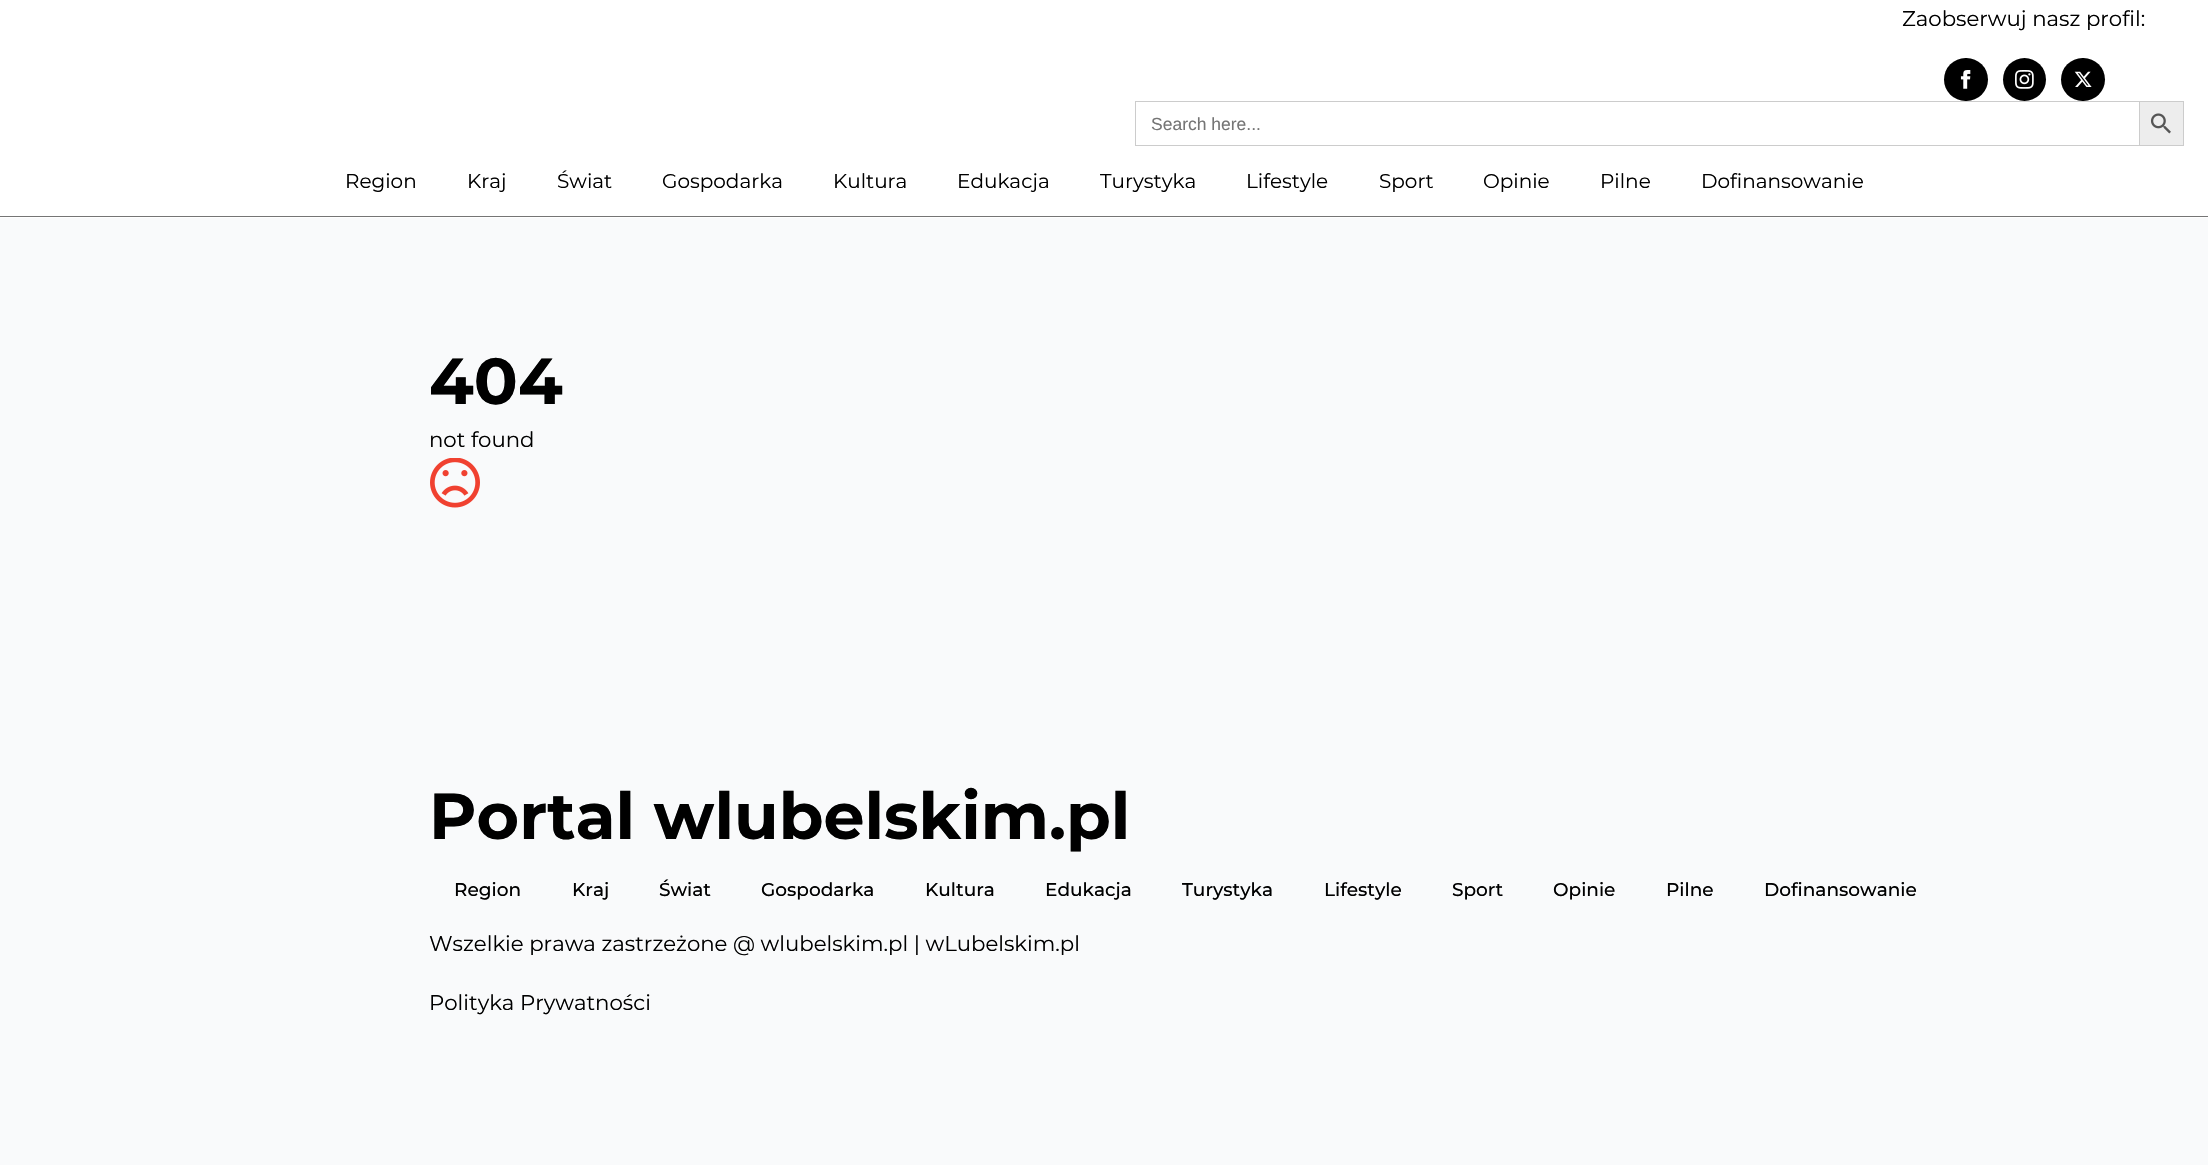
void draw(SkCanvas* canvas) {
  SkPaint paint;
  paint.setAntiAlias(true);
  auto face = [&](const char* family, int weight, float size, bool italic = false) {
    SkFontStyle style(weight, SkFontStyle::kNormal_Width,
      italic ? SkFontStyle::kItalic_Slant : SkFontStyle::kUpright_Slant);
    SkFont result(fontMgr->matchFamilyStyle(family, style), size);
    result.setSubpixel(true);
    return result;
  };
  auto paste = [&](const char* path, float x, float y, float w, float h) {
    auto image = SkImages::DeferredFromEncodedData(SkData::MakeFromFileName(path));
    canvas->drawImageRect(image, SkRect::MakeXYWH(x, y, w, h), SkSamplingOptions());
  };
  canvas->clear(0xfff9fafb);
  paint.setColor(0xffffffff);
  canvas->drawRect(SkRect::MakeXYWH(0, 0, 2208, 218), paint);
  paint.setColor(0xff000000);
  canvas->drawRoundRect(SkRect::MakeXYWH(1944, 58, 44, 43), 21.5f, 21.5f, paint);
  paste("img/1.png", 1960, 70, 11, 19);
  canvas->drawCircle(2024.5f, 79.5f, 21.5f, paint);
  paste("img/2.png", 2015, 70, 19, 19);
  canvas->drawRoundRect(SkRect::MakeXYWH(2061, 58, 44, 43), 21.5f, 21.5f, paint);
  paste("img/3.png", 2074, 71, 18, 16);
  {
    const struct { float x, y, w, h; SkColor color; } items[] = {
      {1135, 101, 1004, 1, 0xffcccccc},
      {1135, 145, 1004, 1, 0xffcccccc},
      {1135, 101, 1, 45, 0xffcccccc},
    };
    for (auto [x, y, w, h, color] : items) {
      paint.setColor(color);
      canvas->drawRect(SkRect::MakeXYWH(x, y, w, h), paint);
    }
  }
  paint.setColor(0xffededed);
  canvas->drawRect(SkRect::MakeXYWH(2139.5f, 101.5f, 44, 44), paint);
  paint.setStroke(true);
  paint.setStrokeWidth(1);
  paint.setColor(0xffcccccc);
  canvas->drawRect(SkRect::MakeXYWH(2139.5f, 101.5f, 44, 44), paint);
  paste("img/4.png", 2150, 113, 21, 21);
  paint.setStroke(false);
  paint.setColor(0xff757575);
  canvas->drawRect(SkRect::MakeXYWH(0, 216, 2208, 1), paint);
  paste("img/5.png", 430, 458, 50, 50);
  auto f0 = face("Montserrat", 400, 21.25f);
  paint.setColor(0xff000000);
  canvas->drawString("Zaobserwuj nasz profil:", 1902, 26, f0, paint);
  auto f1 = face("Liberation Sans", 400, 17.5f);
  paint.setColor(0xff757575);
  canvas->drawString("Search here...", 1151, 130, f1, paint);
  auto f2 = face("Montserrat", 400, 20);
  paint.setColor(0xff000000);
  {
    const struct { const char* s; float x, y; } items[] = {
      {"Region", 345, 188},
      {"Kraj", 467, 188},
      {"Świat", 557, 188},
      {"Gospodarka", 662, 188},
      {"Kultura", 833, 188},
      {"Edukacja", 957, 188},
      {"Turystyka", 1100, 188},
      {"Lifestyle", 1246, 188},
      {"Sport", 1379, 188},
      {"Opinie", 1483, 188},
      {"Pilne", 1600, 188},
      {"Dofinansowanie", 1701, 188},
    };
    for (auto [s, x, y] : items) {
      canvas->drawString(s, x, y, f2, paint);
    }
  }
  auto f3 = face("Montserrat", 700, 65);
  canvas->drawString("404", 429, 404, f3, paint);
  canvas->drawString("not found", 429, 447, f0, paint);
  canvas->drawString("Portal wlubelskim.pl", 429, 839, f3, paint);
  auto f4 = face("Montserrat", 500, 18.5f);
  {
    const struct { const char* s; float x, y; } items[] = {
      {"Region", 454, 896},
      {"Kraj", 572, 896},
      {"Świat", 659, 896},
      {"Gospodarka", 761, 896},
      {"Kultura", 925, 896},
      {"Edukacja", 1045, 896},
      {"Turystyka", 1182, 896},
      {"Lifestyle", 1324, 896},
      {"Sport", 1452, 896},
      {"Opinie", 1553, 896},
      {"Pilne", 1666, 896},
      {"Dofinansowanie", 1764, 896},
    };
    for (auto [s, x, y] : items) {
      canvas->drawString(s, x, y, f4, paint);
    }
  }
  canvas->drawString("Wszelkie prawa zastrzeżone @ wlubelskim.pl | wLubelskim.pl", 429, 951, f0, paint);
  canvas->drawString("Polityka Prywatności", 429, 1010, f0, paint);
}
